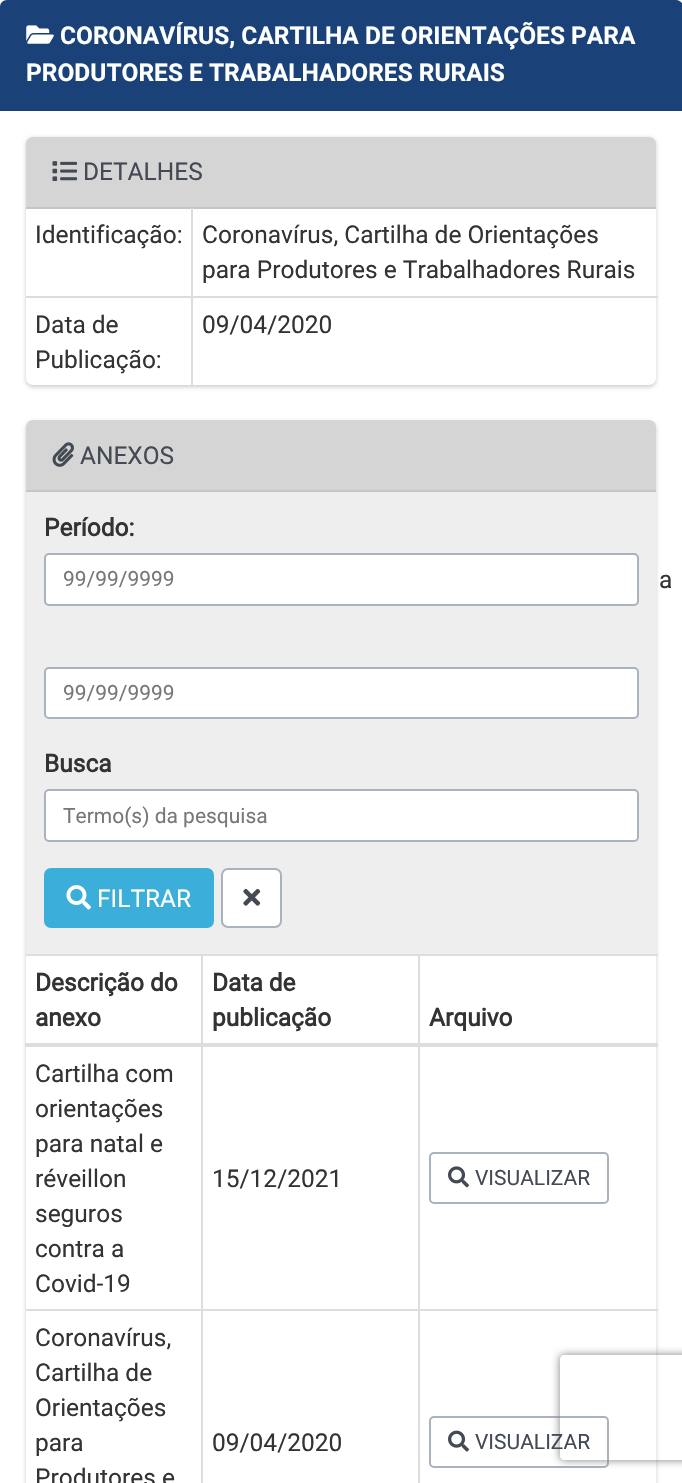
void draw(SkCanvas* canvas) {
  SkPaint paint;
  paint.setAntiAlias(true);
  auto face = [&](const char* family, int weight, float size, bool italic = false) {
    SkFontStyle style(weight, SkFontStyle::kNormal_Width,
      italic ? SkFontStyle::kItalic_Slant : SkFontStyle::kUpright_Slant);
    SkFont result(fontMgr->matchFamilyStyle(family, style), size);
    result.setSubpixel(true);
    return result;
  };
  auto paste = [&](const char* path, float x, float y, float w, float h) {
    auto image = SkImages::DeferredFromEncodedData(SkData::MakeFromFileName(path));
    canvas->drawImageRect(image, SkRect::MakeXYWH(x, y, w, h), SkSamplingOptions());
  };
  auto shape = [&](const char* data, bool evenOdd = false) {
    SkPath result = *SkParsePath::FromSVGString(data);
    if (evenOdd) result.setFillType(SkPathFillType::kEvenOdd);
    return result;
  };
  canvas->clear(0xffffffff);
  paint.setColor(0x33000000);
  paint.setMaskFilter(SkMaskFilter::MakeBlur(kNormal_SkBlurStyle, 2));
  canvas->drawRoundRect(SkRect::MakeXYWH(0, 2, 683, 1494), 7, 7, paint);
  paint.setMaskFilter(nullptr);
  paint.setColor(0xffffffff);
  canvas->drawRoundRect(SkRect::MakeXYWH(0, 0, 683, 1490), 7, 7, paint);
  paint.setColor(0xff1a4278);
  canvas->drawPath(shape("M7 0H676C680 0 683 3 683 7V110H0V7C0 3 3 0 7 0Z"), paint);
  canvas->drawRect(SkRect::MakeXYWH(0, 110, 682, 1), paint);
  paste("img/1.png", 26, 25, 28, 19);
  paint.setColor(0x33000000);
  paint.setMaskFilter(SkMaskFilter::MakeBlur(kNormal_SkBlurStyle, 2));
  canvas->drawRoundRect(SkRect::MakeXYWH(26, 138, 630, 249), 7, 7, paint);
  paint.setMaskFilter(nullptr);
  paint.setColor(0xffffffff);
  canvas->drawRoundRect(SkRect::MakeXYWH(26, 137, 630, 248), 7, 7, paint);
  paint.setColor(0xffd5d5d5);
  canvas->drawPath(shape("M33 137H649C653 137 656 140 656 144V208H26V144C26 140 29 137 33 137Z"), paint);
  paint.setColor(0xffc5c5c5);
  canvas->drawRect(SkRect::MakeXYWH(26, 207, 630, 2), paint);
  paste("img/2.png", 52, 161, 25, 20);
  {
    const struct { float x, y, w, h; SkColor color; } items[] = {
      {191, 296, 467, 2, 0xffdddddd},
      {191, 296, 2, 91, 0xffdddddd},
      {26, 296, 167, 2, 0xffdddddd},
      {191, 208, 2, 90, 0xffdddddd},
    };
    for (auto [x, y, w, h, color] : items) {
      paint.setColor(color);
      canvas->drawRect(SkRect::MakeXYWH(x, y, w, h), paint);
    }
  }
  paint.setColor(0x33000000);
  paint.setMaskFilter(SkMaskFilter::MakeBlur(kNormal_SkBlurStyle, 2));
  canvas->drawRoundRect(SkRect::MakeXYWH(26, 422, 630, 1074), 7, 7, paint);
  paint.setMaskFilter(nullptr);
  paint.setColor(0xffffffff);
  canvas->drawRoundRect(SkRect::MakeXYWH(26, 420, 630, 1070), 7, 7, paint);
  paint.setColor(0xffd5d5d5);
  canvas->drawPath(shape("M33 420H649C653 420 656 423 656 427V492H26V427C26 423 29 420 33 420Z"), paint);
  paint.setColor(0xffc5c5c5);
  canvas->drawRect(SkRect::MakeXYWH(26, 490, 630, 2), paint);
  paste("img/3.png", 52, 442, 22, 25);
  paint.setColor(0xffeeeeee);
  canvas->drawRect(SkRect::MakeXYWH(26, 492, 630, 462), paint);
  paint.setColor(0xffffffff);
  canvas->drawRoundRect(SkRect::MakeXYWH(45, 554, 593, 51), 4, 4, paint);
  paint.setStroke(true);
  paint.setStrokeWidth(2);
  paint.setColor(0xffaab2bd);
  canvas->drawRoundRect(SkRect::MakeXYWH(45, 554, 593, 51), 4, 4, paint);
  paint.setStroke(false);
  paint.setColor(0xffffffff);
  canvas->drawRoundRect(SkRect::MakeXYWH(45, 668, 593, 50), 4, 4, paint);
  paint.setStroke(true);
  paint.setColor(0xffaab2bd);
  canvas->drawRoundRect(SkRect::MakeXYWH(45, 668, 593, 50), 4, 4, paint);
  paint.setStroke(false);
  paint.setColor(0xffffffff);
  canvas->drawRoundRect(SkRect::MakeXYWH(45, 790, 593, 51), 4, 4, paint);
  paint.setStroke(true);
  paint.setColor(0xffaab2bd);
  canvas->drawRoundRect(SkRect::MakeXYWH(45, 790, 593, 51), 4, 4, paint);
  paint.setStroke(false);
  paint.setColor(0xff3bafda);
  canvas->drawRoundRect(SkRect::MakeXYWH(45, 869, 168, 58), 6, 6, paint);
  paint.setStroke(true);
  canvas->drawRoundRect(SkRect::MakeXYWH(45, 869, 168, 58), 6, 6, paint);
  paste("img/4.png", 66, 885, 25, 25);
  paint.setStroke(false);
  paint.setColor(0xffffffff);
  canvas->drawRoundRect(SkRect::MakeXYWH(222, 869, 59, 58), 6, 6, paint);
  paint.setStroke(true);
  paint.setColor(0xffaab2bd);
  canvas->drawRoundRect(SkRect::MakeXYWH(222, 869, 59, 58), 6, 6, paint);
  paste("img/5.png", 243, 888, 18, 18);
  paint.setStroke(false);
  {
    const struct { float x, y, w, h; SkColor color; } items[] = {
      {418, 954, 240, 2, 0xffdddddd},
      {418, 1309, 240, 2, 0xffdddddd},
      {418, 1309, 2, 174, 0xffdddddd},
      {201, 1309, 219, 2, 0xffdddddd},
      {418, 1045, 2, 266, 0xffdddddd},
      {418, 954, 2, 93, 0xffdddddd},
      {201, 954, 219, 2, 0xffdddddd},
      {201, 1309, 2, 174, 0xffdddddd},
      {26, 1309, 177, 2, 0xffdddddd},
      {201, 1045, 2, 266, 0xffdddddd},
      {201, 954, 2, 93, 0xffdddddd},
      {26, 954, 177, 2, 0xffdddddd},
      {25, 1043, 633, 4, 0xffdddddd},
    };
    for (auto [x, y, w, h, color] : items) {
      paint.setColor(color);
      canvas->drawRect(SkRect::MakeXYWH(x, y, w, h), paint);
    }
  }
  paint.setStroke(true);
  paint.setColor(0xffaab2bd);
  canvas->drawRoundRect(SkRect::MakeXYWH(430, 1153, 178, 50), 4, 4, paint);
  paste("img/6.png", 448, 1166, 21, 22);
  canvas->drawRoundRect(SkRect::MakeXYWH(430, 1417, 178, 50), 4, 4, paint);
  paste("img/7.png", 448, 1430, 21, 22);
  canvas->save();
  canvas->clipPath(shape("M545 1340H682V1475H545ZM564 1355H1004C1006 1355 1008 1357 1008 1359V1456C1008 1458 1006 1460 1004 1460H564C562 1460 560 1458 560 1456V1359C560 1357 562 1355 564 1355Z", true), true);
  paint.setStroke(false);
  paint.setColor(0xff808080);
  paint.setMaskFilter(SkMaskFilter::MakeBlur(kNormal_SkBlurStyle, 4.5f));
  canvas->drawRoundRect(SkRect::MakeXYWH(560, 1355, 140, 105), 4, 4, paint);
  paint.setMaskFilter(nullptr);
  canvas->restore();
  auto f0 = face("Roboto", 700, 24.5f);
  paint.setColor(0xffffffff);
  canvas->drawString("CORONAVÍRUS, CARTILHA DE ORIENTAÇÕES PARA", 60, 44, f0, paint);
  canvas->drawString("PRODUTORES E TRABALHADORES RURAIS", 26, 81, f0, paint);
  auto f1 = face("Roboto", 400, 24.5f);
  paint.setColor(0xff434a54);
  canvas->drawString("DETALHES", 83, 180, f1, paint);
  paint.setColor(0xff333333);
  {
    const struct { const char* s; float x, y; } items[] = {
      {"Identificação:", 35, 243},
      {"Coronavírus, Cartilha de Orientações", 202, 243},
      {"para Produtores e Trabalhadores Rurais", 202, 278},
      {"Data de", 35, 333},
      {"Publicação:", 35, 368},
      {"09/04/2020", 202, 333},
    };
    for (auto [s, x, y] : items) {
      canvas->drawString(s, x, y, f1, paint);
    }
  }
  paint.setColor(0xff434a54);
  canvas->drawString("ANEXOS", 80, 464, f1, paint);
  auto f2 = face("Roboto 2", 700, 24.5f);
  paint.setColor(0xff333333);
  canvas->drawString("Período:", 44, 536, f2, paint);
  auto f3 = face("Roboto", 400, 21);
  paint.setColor(0xff777777);
  canvas->drawString("99/99/9999", 63, 586, f3, paint);
  paint.setColor(0xff333333);
  canvas->drawString("a", 659, 588, f1, paint);
  paint.setColor(0xff777777);
  canvas->drawString("99/99/9999", 63, 700, f3, paint);
  paint.setColor(0xff333333);
  canvas->drawString("Busca", 44, 772, f2, paint);
  paint.setColor(0xff777777);
  canvas->drawString("Termo(s) da pesquisa", 63, 823, f3, paint);
  paint.setColor(0xffffffff);
  canvas->drawString("FILTRAR", 97, 907, f1, paint);
  paint.setColor(0xff333333);
  {
    const struct { const char* s; float x, y; } items[] = {
      {"Descrição do", 35, 991},
      {"anexo", 35, 1026},
      {"Data de", 212, 991},
      {"publicação", 212, 1026},
      {"Arquivo", 429, 1026},
    };
    for (auto [s, x, y] : items) {
      canvas->drawString(s, x, y, f2, paint);
    }
  }
  {
    const struct { const char* s; float x, y; } items[] = {
      {"Cartilha com", 35, 1082},
      {"orientações", 35, 1117},
      {"para natal e", 35, 1152},
      {"réveillon", 35, 1187},
      {"seguros", 35, 1222},
      {"contra a", 35, 1257},
      {"Covid-19", 35, 1292},
      {"15/12/2021", 212, 1187},
    };
    for (auto [s, x, y] : items) {
      canvas->drawString(s, x, y, f1, paint);
    }
  }
  paint.setColor(0xff434a54);
  canvas->drawString("VISUALIZAR", 475, 1185, f3, paint);
  paint.setColor(0xff333333);
  {
    const struct { const char* s; float x, y; } items[] = {
      {"Coronavírus,", 35, 1346},
      {"Cartilha de", 35, 1381},
      {"Orientações", 35, 1416},
      {"para", 35, 1451},
      {"Produtores e", 35, 1486},
      {"09/04/2020", 212, 1451},
    };
    for (auto [s, x, y] : items) {
      canvas->drawString(s, x, y, f1, paint);
    }
  }
  paint.setColor(0xff434a54);
  canvas->drawString("VISUALIZAR", 475, 1449, f3, paint);
}
